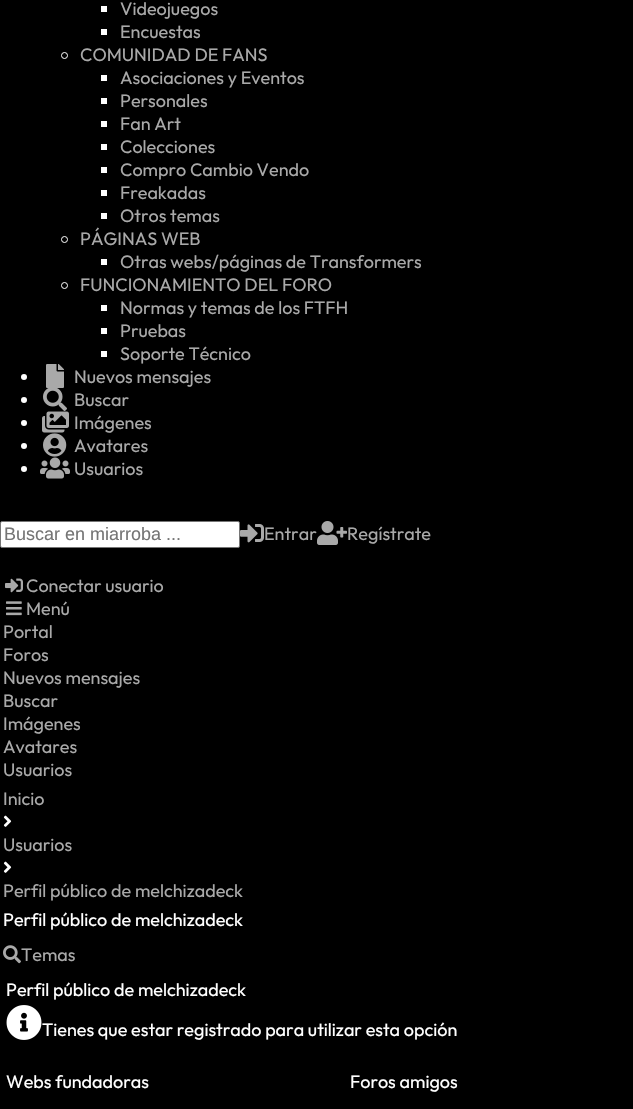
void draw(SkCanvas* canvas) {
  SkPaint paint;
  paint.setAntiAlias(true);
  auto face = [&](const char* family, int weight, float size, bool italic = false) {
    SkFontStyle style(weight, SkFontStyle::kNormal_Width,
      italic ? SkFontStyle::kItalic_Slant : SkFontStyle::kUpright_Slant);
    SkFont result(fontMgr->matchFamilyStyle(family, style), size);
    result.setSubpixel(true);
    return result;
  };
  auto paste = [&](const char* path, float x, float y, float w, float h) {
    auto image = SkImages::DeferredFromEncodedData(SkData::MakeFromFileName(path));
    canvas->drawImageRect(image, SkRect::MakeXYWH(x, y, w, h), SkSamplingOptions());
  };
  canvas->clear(0xff000000);
  paint.setColor(0xffffffff);
  canvas->drawRect(SkRect::MakeXYWH(101, 6, 6, 6), paint);
  canvas->drawRect(SkRect::MakeXYWH(101, 29, 6, 6), paint);
  paint.setStroke(true);
  paint.setStrokeWidth(1);
  canvas->drawCircle(64.5f, 55.5f, 3, paint);
  paint.setStroke(false);
  {
    const struct { float x, y, w, h; SkColor color; } items[] = {
      {101, 75, 6, 6, 0xffffffff},
      {101, 98, 6, 6, 0xffffffff},
      {101, 121, 6, 6, 0xffffffff},
      {101, 144, 6, 6, 0xffffffff},
      {101, 167, 6, 6, 0xffffffff},
      {101, 190, 6, 6, 0xffffffff},
      {101, 213, 6, 6, 0xffffffff},
    };
    for (auto [x, y, w, h, color] : items) {
      paint.setColor(color);
      canvas->drawRect(SkRect::MakeXYWH(x, y, w, h), paint);
    }
  }
  paint.setStroke(true);
  canvas->drawCircle(64.5f, 239.5f, 3, paint);
  paint.setStroke(false);
  canvas->drawRect(SkRect::MakeXYWH(101, 259, 6, 6), paint);
  paint.setStroke(true);
  canvas->drawCircle(64.5f, 285.5f, 3, paint);
  paint.setStroke(false);
  {
    const struct { float x, y, w, h; SkColor color; } items[] = {
      {101, 305, 6, 6, 0xffffffff},
      {101, 328, 6, 6, 0xffffffff},
      {101, 351, 6, 6, 0xffffffff},
    };
    for (auto [x, y, w, h, color] : items) {
      paint.setColor(color);
      canvas->drawRect(SkRect::MakeXYWH(x, y, w, h), paint);
    }
  }
  canvas->drawCircle(24, 377, 3, paint);
  paste("img/1.png", 46, 364, 18, 24);
  canvas->drawCircle(24, 400, 3, paint);
  paste("img/2.png", 43, 388, 24, 23);
  canvas->drawCircle(24, 423, 3, paint);
  paste("img/3.png", 42, 411, 27, 22);
  canvas->drawCircle(24, 446, 3, paint);
  paste("img/4.png", 43, 433, 24, 24);
  canvas->drawCircle(24, 469, 3, paint);
  paste("img/5.png", 40, 457, 30, 22);
  canvas->drawRoundRect(SkRect::MakeXYWH(0.5f, 521.5f, 239, 26), 1.5f, 1.5f, paint);
  paint.setStroke(true);
  paint.setColor(0xff767676);
  canvas->drawRoundRect(SkRect::MakeXYWH(0.5f, 521.5f, 239, 26), 1.5f, 1.5f, paint);
  paste("img/6.png", 240, 524, 24, 19);
  paste("img/7.png", 317, 521, 30, 24);
  paste("img/8.png", 5, 578, 18, 15);
  paste("img/9.png", 6, 601, 16, 15);
  paste("img/10.png", 3, 815, 9, 12);
  paste("img/10.png", 3, 861, 9, 12);
  paste("img/11.png", 3, 945, 18, 19);
  paste("img/12.png", 6, 1005, 36, 35);
  auto f0 = face("Outfit", 400, 18);
  paint.setStroke(false);
  paint.setColor(0xffa9a9a9);
  {
    const struct { const char* s; float x, y; } items[] = {
      {"Videojuegos", 120, 15},
      {"Encuestas", 120, 38},
      {"COMUNIDAD DE FANS", 80, 61},
      {"Asociaciones y Eventos", 120, 84},
      {"Personales", 120, 107},
      {"Fan Art", 120, 130},
      {"Colecciones", 120, 153},
      {"Compro Cambio Vendo", 120, 176},
      {"Freakadas", 120, 199},
      {"Otros temas", 120, 222},
      {"PÁGINAS WEB", 80, 245},
      {"Otras webs/páginas de Transformers", 120, 268},
      {"FUNCIONAMIENTO DEL FORO", 80, 291},
      {"Normas y temas de los FTFH", 120, 314},
      {"Pruebas", 120, 337},
      {"Soporte Técnico", 120, 360},
      {"Nuevos mensajes", 74, 383},
      {"Buscar", 74, 406},
      {"Imágenes", 74, 429},
      {"Avatares", 74, 452},
      {"Usuarios", 74, 475},
    };
    for (auto [s, x, y] : items) {
      canvas->drawString(s, x, y, f0, paint);
    }
  }
  auto f1 = face("Liberation Sans", 400, 18);
  paint.setColor(0xff757575);
  canvas->drawString("Buscar en miarroba ...", 4, 540, f1, paint);
  paint.setColor(0xffa9a9a9);
  {
    const struct { const char* s; float x, y; } items[] = {
      {"Entrar", 264, 540},
      {"Regístrate", 347, 540},
      {"Conectar usuario", 26, 592},
      {"Menú", 26, 615},
      {"Portal", 3, 638},
      {"Foros", 3, 661},
      {"Nuevos mensajes", 3, 684},
      {"Buscar", 3, 707},
      {"Imágenes", 3, 730},
      {"Avatares", 3, 753},
      {"Usuarios", 3, 776},
      {"Inicio", 3, 805},
      {"Usuarios", 3, 851},
      {"Perfil público de melchizadeck", 3, 897},
    };
    for (auto [s, x, y] : items) {
      canvas->drawString(s, x, y, f0, paint);
    }
  }
  paint.setColor(0xffffffff);
  canvas->drawString("Perfil público de melchizadeck", 3, 926, f0, paint);
  paint.setColor(0xffa9a9a9);
  canvas->drawString("Temas", 21, 961, f0, paint);
  paint.setColor(0xffffffff);
  {
    const struct { const char* s; float x, y; } items[] = {
      {"Perfil público de melchizadeck", 6, 996},
      {"Tienes que estar registrado para utilizar esta opción", 42, 1036},
      {"Webs fundadoras", 6, 1088},
      {"Foros amigos", 350, 1088},
    };
    for (auto [s, x, y] : items) {
      canvas->drawString(s, x, y, f0, paint);
    }
  }
}
